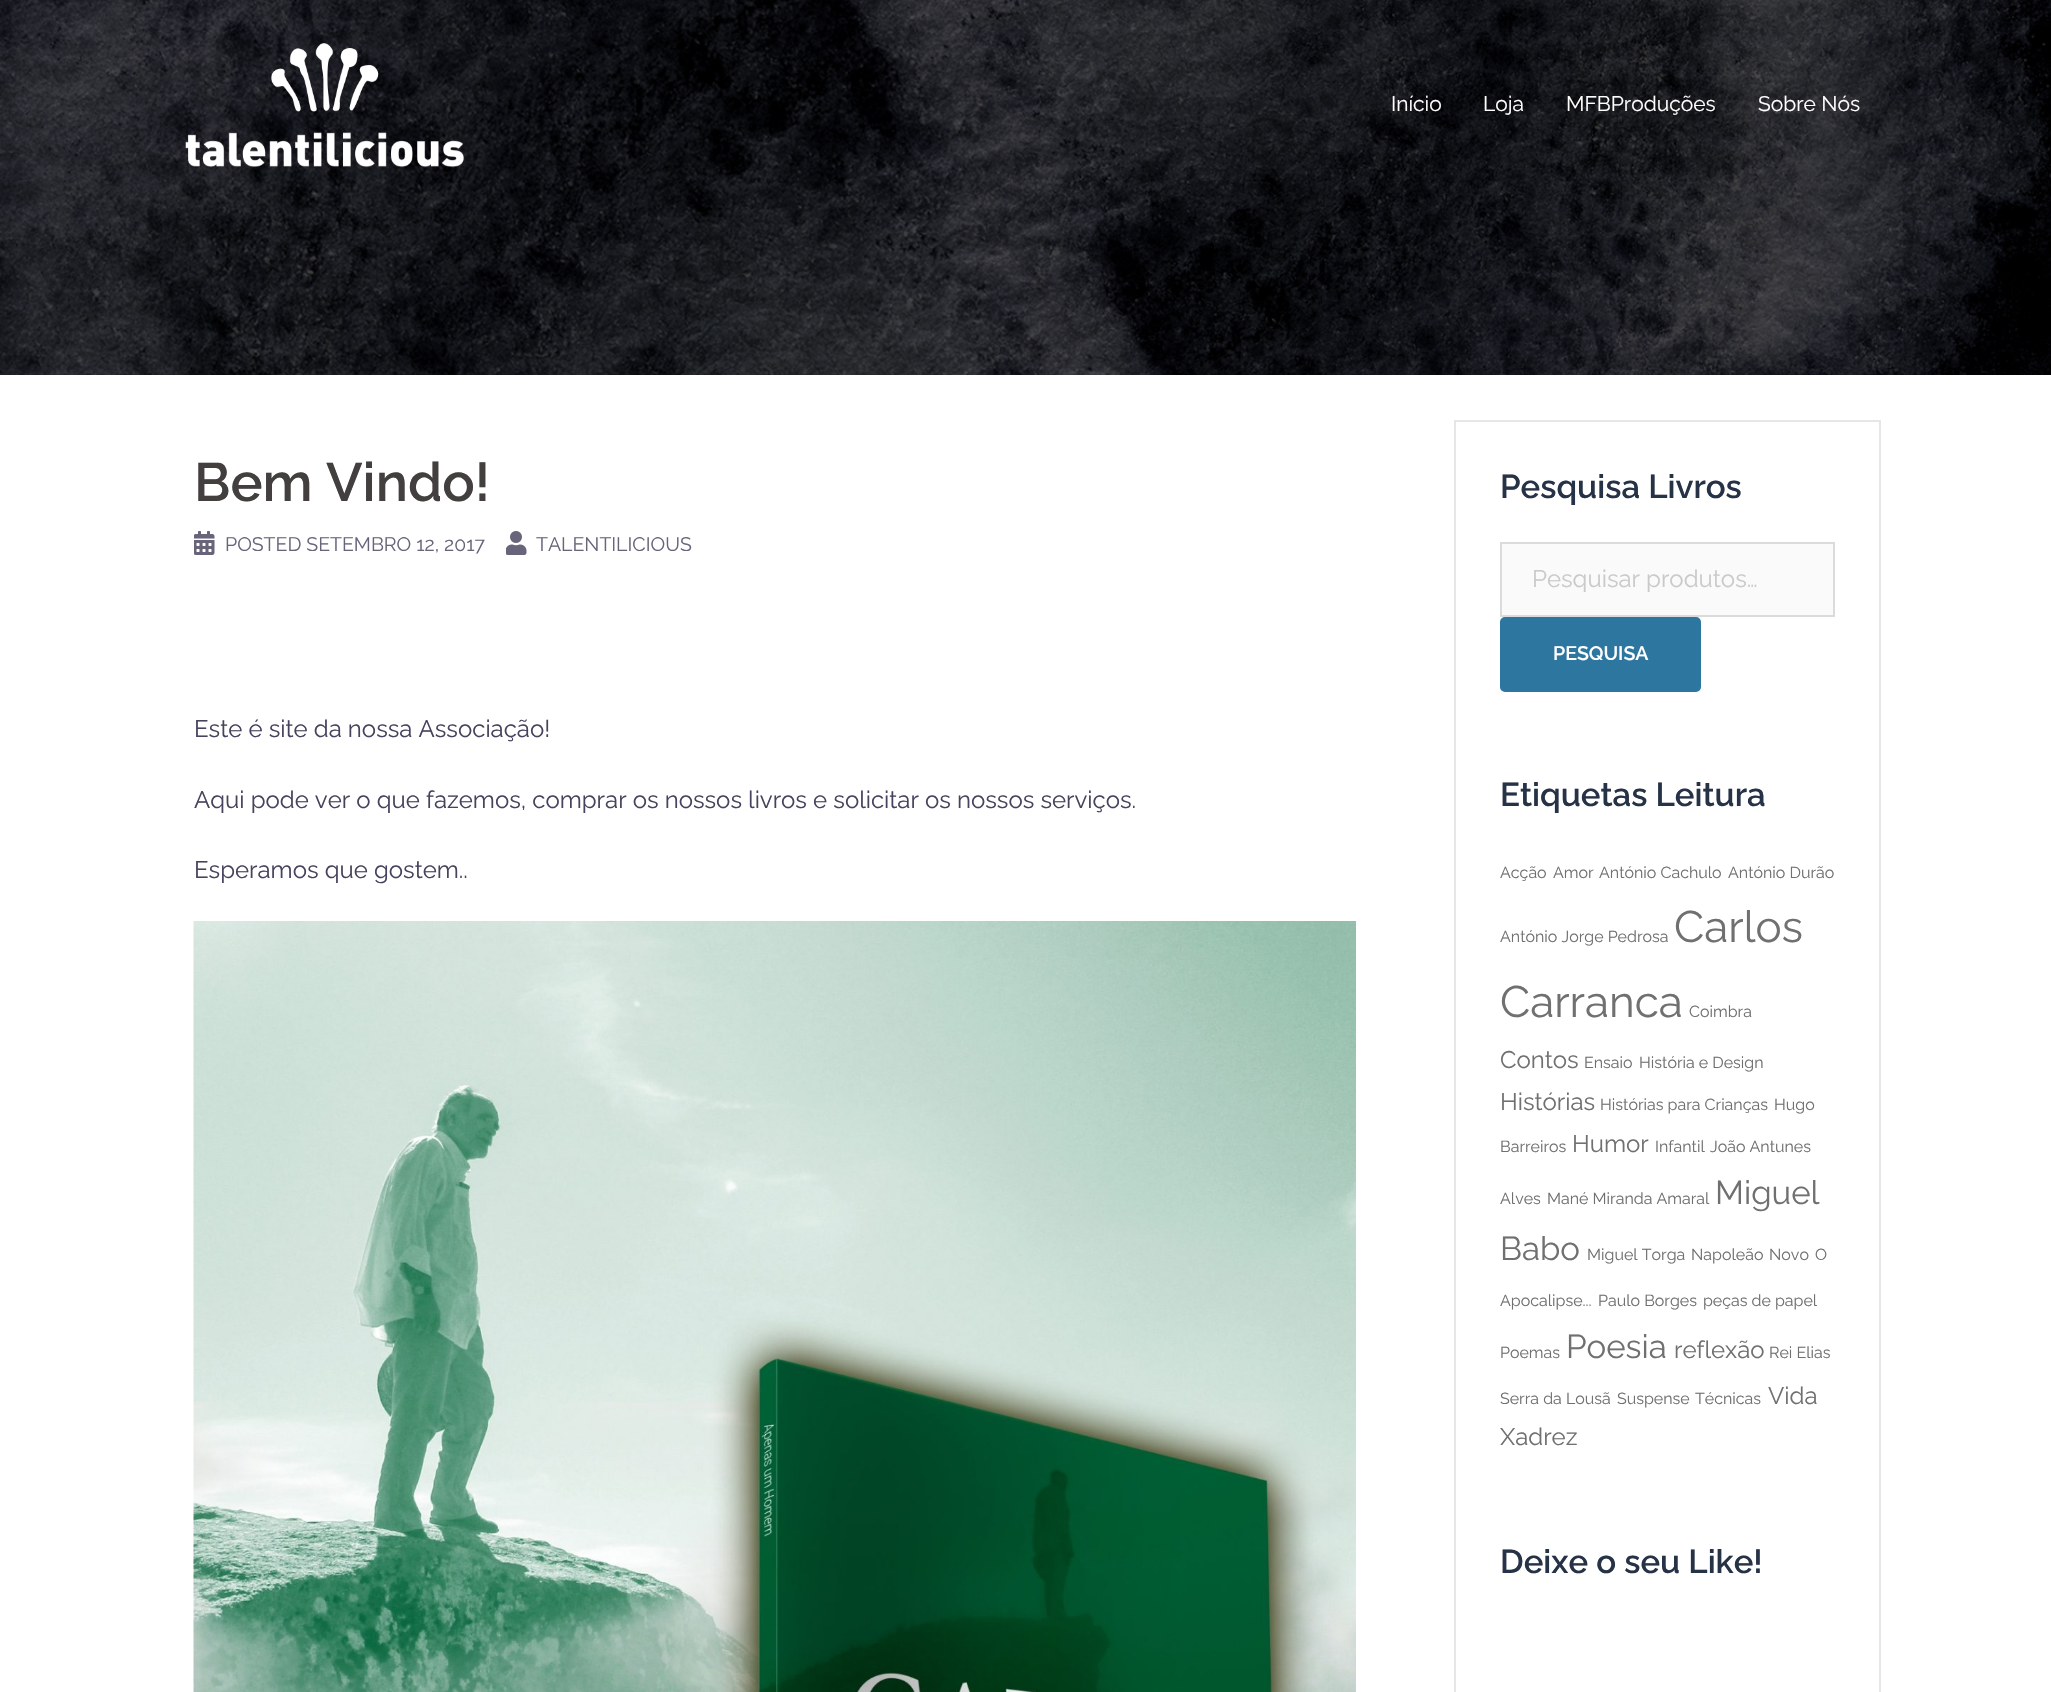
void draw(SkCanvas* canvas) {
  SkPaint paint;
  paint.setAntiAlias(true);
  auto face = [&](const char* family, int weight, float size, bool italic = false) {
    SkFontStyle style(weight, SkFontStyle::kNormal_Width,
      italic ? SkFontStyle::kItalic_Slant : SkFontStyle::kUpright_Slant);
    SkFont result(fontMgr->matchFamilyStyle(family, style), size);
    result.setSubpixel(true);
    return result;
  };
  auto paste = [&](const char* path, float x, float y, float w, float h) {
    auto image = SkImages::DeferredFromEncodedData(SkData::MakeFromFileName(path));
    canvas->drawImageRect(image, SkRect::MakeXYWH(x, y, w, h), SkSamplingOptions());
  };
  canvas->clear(0xffffffff);
  paste("img/1.png", 0, 0, 2051, 375);
  paste("img/2.png", 185, 43, 279, 125);
  paste("img/3.png", 194, 531, 21, 24);
  paste("img/4.png", 506, 531, 21, 24);
  paste("img/5.png", 193, 921, 1163, 771);
  paint.setStroke(true);
  paint.setStrokeWidth(2);
  paint.setColor(0xffe6e6e6);
  canvas->drawRect(SkRect::MakeXYWH(1455, 421, 425, 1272), paint);
  paint.setStroke(false);
  paint.setColor(0xfffafafa);
  canvas->drawRect(SkRect::MakeXYWH(1501, 543, 333, 73), paint);
  paint.setStroke(true);
  paint.setColor(0xffdbdbdb);
  canvas->drawRect(SkRect::MakeXYWH(1501, 543, 333, 73), paint);
  paint.setStroke(false);
  paint.setColor(0xff2c76a0);
  canvas->drawRoundRect(SkRect::MakeXYWH(1501, 618, 199, 73), 4, 4, paint);
  paint.setStroke(true);
  canvas->drawRoundRect(SkRect::MakeXYWH(1501, 618, 199, 73), 4, 4, paint);
  auto f0 = face("Raleway", 400, 21);
  paint.setStroke(false);
  paint.setColor(0xffffffff);
  {
    const struct { const char* s; float x, y; } items[] = {
      {"Início", 1391, 111},
      {"Loja", 1483, 111},
      {"MFBProduções", 1566, 111},
      {"Sobre Nós", 1758, 111},
    };
    for (auto [s, x, y] : items) {
      canvas->drawString(s, x, y, f0, paint);
    }
  }
  auto f1 = face("Raleway", 600, 54);
  paint.setColor(0xff443f3f);
  canvas->drawString("Bem Vindo!", 194, 501, f1, paint);
  auto f2 = face("Raleway", 400, 19.5f);
  paint.setColor(0xff68647a);
  canvas->drawString("POSTED SETEMBRO 12, 2017", 225, 551, f2, paint);
  canvas->drawString("TALENTILICIOUS", 536, 551, f2, paint);
  auto f3 = face("Raleway", 400, 24);
  paint.setColor(0xff47425d);
  {
    const struct { const char* s; float x, y; } items[] = {
      {"Este é site da nossa Associação!", 194, 737},
      {"Aqui pode ver o que fazemos, comprar os nossos livros e solicitar os nossos serviços.", 194, 808},
      {"Esperamos que gostem..", 194, 878},
    };
    for (auto [s, x, y] : items) {
      canvas->drawString(s, x, y, f3, paint);
    }
  }
  auto f4 = face("Raleway", 600, 33);
  paint.setColor(0xff263246);
  canvas->drawString("Pesquisa Livros", 1500, 498, f4, paint);
  paint.setColor(0xffcacaca);
  canvas->drawString("Pesquisar produtos…", 1532, 587, f3, paint);
  auto f5 = face("Raleway", 600, 19.5f);
  paint.setColor(0xffffffff);
  canvas->drawString("PESQUISA", 1553, 660, f5, paint);
  paint.setColor(0xff263246);
  canvas->drawString("Etiquetas Leitura", 1500, 806, f4, paint);
  auto f6 = face("Raleway", 400, 16);
  paint.setColor(0xff707070);
  {
    const struct { const char* s; float x, y; } items[] = {
      {"Acção", 1500, 878},
      {"Amor", 1553, 878},
      {"António Cachulo", 1599, 878},
      {"António Durão", 1728, 878},
      {"António Jorge Pedrosa", 1500, 942},
    };
    for (auto [s, x, y] : items) {
      canvas->drawString(s, x, y, f6, paint);
    }
  }
  auto f7 = face("Raleway", 400, 44);
  canvas->drawString("Carlos", 1674, 942, f7, paint);
  canvas->drawString("Carranca", 1500, 1017, f7, paint);
  canvas->drawString("Coimbra", 1689, 1017, f6, paint);
  canvas->drawString("Contos", 1500, 1068, f3, paint);
  canvas->drawString("Ensaio", 1584, 1068, f6, paint);
  canvas->drawString("História e Design", 1639, 1068, f6, paint);
  canvas->drawString("Histórias", 1500, 1110, f3, paint);
  {
    const struct { const char* s; float x, y; } items[] = {
      {"Histórias para Crianças", 1600, 1110},
      {"Hugo", 1774, 1110},
      {"Barreiros", 1500, 1152},
    };
    for (auto [s, x, y] : items) {
      canvas->drawString(s, x, y, f6, paint);
    }
  }
  canvas->drawString("Humor", 1572, 1152, f3, paint);
  {
    const struct { const char* s; float x, y; } items[] = {
      {"Infantil", 1655, 1152},
      {"João Antunes", 1710, 1152},
      {"Alves", 1500, 1204},
      {"Mané Miranda Amaral", 1547, 1204},
    };
    for (auto [s, x, y] : items) {
      canvas->drawString(s, x, y, f6, paint);
    }
  }
  auto f8 = face("Raleway", 400, 33);
  canvas->drawString("Miguel", 1715, 1204, f8, paint);
  canvas->drawString("Babo", 1500, 1260, f8, paint);
  {
    const struct { const char* s; float x, y; } items[] = {
      {"Miguel Torga", 1587, 1260},
      {"Napoleão", 1691, 1260},
      {"Novo", 1769, 1260},
      {"O", 1815, 1260},
      {"Apocalipse...", 1500, 1306},
      {"Paulo Borges", 1598, 1306},
      {"peças de papel", 1703, 1306},
      {"Poemas", 1500, 1358},
    };
    for (auto [s, x, y] : items) {
      canvas->drawString(s, x, y, f6, paint);
    }
  }
  canvas->drawString("Poesia", 1566, 1358, f8, paint);
  canvas->drawString("reflexão", 1674, 1358, f3, paint);
  {
    const struct { const char* s; float x, y; } items[] = {
      {"Rei Elias", 1769, 1358},
      {"Serra da Lousã", 1500, 1404},
      {"Suspense", 1617, 1404},
      {"Técnicas", 1695, 1404},
    };
    for (auto [s, x, y] : items) {
      canvas->drawString(s, x, y, f6, paint);
    }
  }
  canvas->drawString("Vida", 1768, 1404, f3, paint);
  canvas->drawString("Xadrez", 1500, 1445, f3, paint);
  paint.setColor(0xff263246);
  canvas->drawString("Deixe o seu Like!", 1500, 1573, f4, paint);
}
